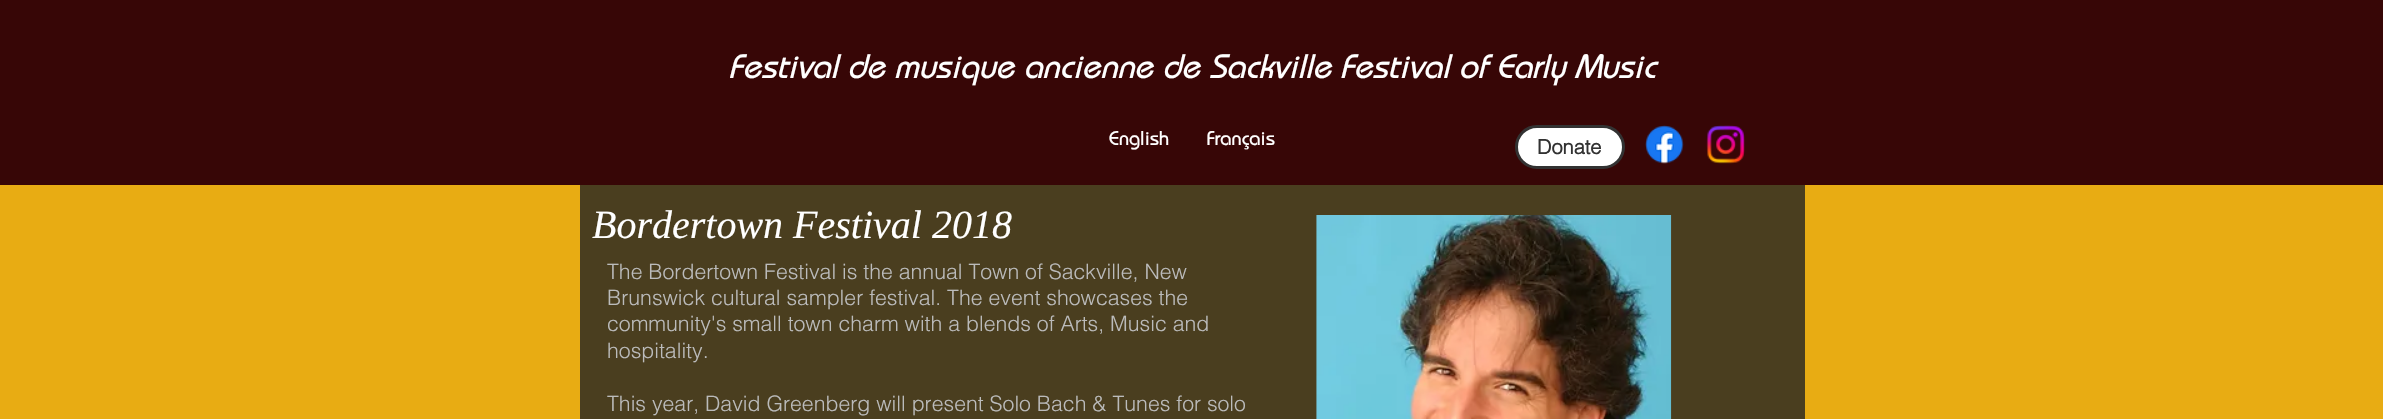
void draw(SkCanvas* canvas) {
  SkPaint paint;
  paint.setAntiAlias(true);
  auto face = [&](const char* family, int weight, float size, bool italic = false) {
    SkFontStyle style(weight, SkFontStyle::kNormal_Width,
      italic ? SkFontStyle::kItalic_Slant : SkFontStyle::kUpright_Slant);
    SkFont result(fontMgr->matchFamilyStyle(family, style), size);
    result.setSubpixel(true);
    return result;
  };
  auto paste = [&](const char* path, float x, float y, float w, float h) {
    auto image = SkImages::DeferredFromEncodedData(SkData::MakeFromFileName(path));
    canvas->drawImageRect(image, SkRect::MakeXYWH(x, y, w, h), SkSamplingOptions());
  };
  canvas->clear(0xffe8ac13);
  paint.setColor(0xff370606);
  canvas->drawRect(SkRect::MakeXYWH(0, 0, 2383, 185), paint);
  paint.setColor(0xffffffff);
  canvas->drawRoundRect(SkRect::MakeXYWH(1516.5f, 126.5f, 107, 41), 20.5f, 20.5f, paint);
  paint.setStroke(true);
  paint.setStrokeWidth(3);
  paint.setColor(0xff323232);
  canvas->drawRoundRect(SkRect::MakeXYWH(1516.5f, 126.5f, 107, 41), 20.5f, 20.5f, paint);
  paste("img/1.png", 1645, 125, 39, 39);
  paste("img/2.png", 1706, 125, 39, 39);
  paint.setStroke(false);
  paint.setColor(0xff4a3e1f);
  canvas->drawRect(SkRect::MakeXYWH(580, 185, 1225, 234), paint);
  paste("img/3.png", 1316, 215, 356, 204);
  auto f0 = face("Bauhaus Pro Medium", 500, 33.75f, true);
  paint.setColor(0xffffffff);
  canvas->drawString("Festival de musique ancienne de Sackville Festival of Early Music", 729, 78, f0, paint);
  auto f1 = face("Bauhaus Pro Medium", 500, 20);
  canvas->drawString("English", 1109, 145, f1, paint);
  canvas->drawString("Français", 1207, 145, f1, paint);
  auto f2 = face("helvetica", 700, 20);
  paint.setColor(0xff323232);
  canvas->drawString("Donate", 1537, 154, f2, paint);
  auto f3 = face("Liberation Serif", 400, 40, true);
  paint.setColor(0xffffffff);
  canvas->drawString("Bordertown Festival 2018", 592, 238, f3, paint);
  auto f4 = face("helvetica", 300, 21.25f);
  paint.setColor(0xffbbbbbb);
  {
    const struct { const char* s; float x, y; } items[] = {
      {"The Bordertown Festival is the annual Town of Sackville, New", 607, 279},
      {"Brunswick cultural sampler festival. The event showcases the", 607, 305},
      {"community's small town charm with a blends of Arts, Music and", 607, 331},
      {"hospitality.", 607, 358},
      {"This year, David Greenberg will present Solo Bach & Tunes for solo", 607, 411},
    };
    for (auto [s, x, y] : items) {
      canvas->drawString(s, x, y, f4, paint);
    }
  }
}
